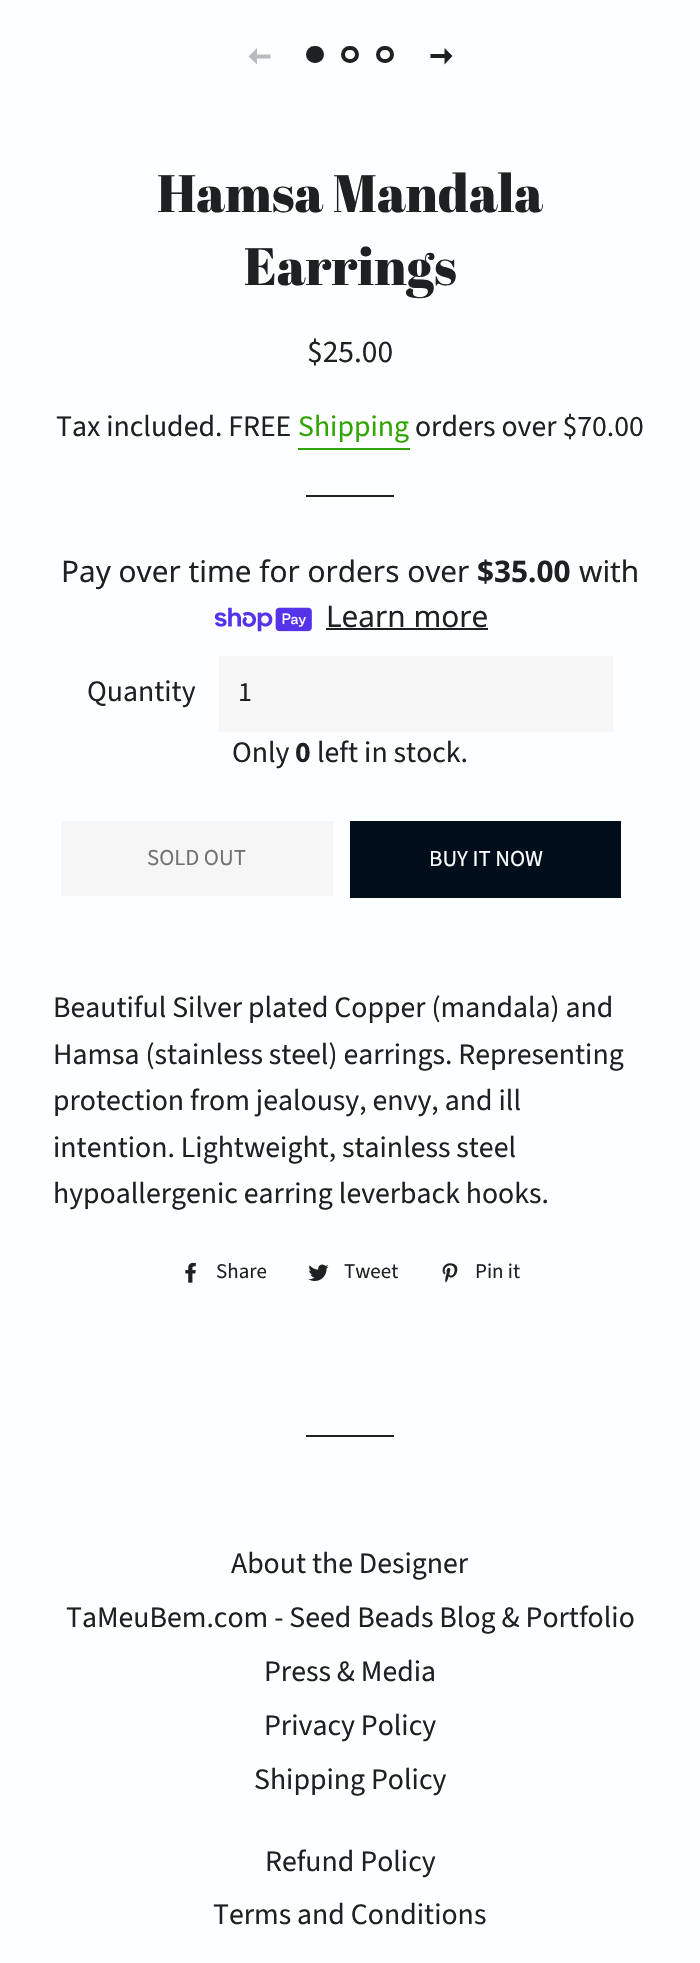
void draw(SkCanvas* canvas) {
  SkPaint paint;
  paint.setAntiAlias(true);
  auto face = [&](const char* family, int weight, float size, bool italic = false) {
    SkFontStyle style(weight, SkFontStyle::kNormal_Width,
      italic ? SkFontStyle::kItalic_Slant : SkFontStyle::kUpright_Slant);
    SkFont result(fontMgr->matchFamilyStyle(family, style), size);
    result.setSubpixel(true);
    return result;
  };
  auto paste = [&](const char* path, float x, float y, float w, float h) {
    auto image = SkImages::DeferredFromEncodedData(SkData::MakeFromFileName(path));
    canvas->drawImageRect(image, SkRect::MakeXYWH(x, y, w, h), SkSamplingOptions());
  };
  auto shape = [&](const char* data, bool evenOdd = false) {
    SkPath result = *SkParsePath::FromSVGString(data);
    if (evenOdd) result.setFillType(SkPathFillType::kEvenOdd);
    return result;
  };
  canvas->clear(0xfffdfeff);
  paint.setColor(0xffbabbbc);
  canvas->drawPath(shape("M248.5 56.5L257 64.5V58.5H270.5V54.5H257V48Z"), paint);
  paint.setColor(0xff1f2021);
  canvas->drawRoundRect(SkRect::MakeXYWH(308, 48, 14, 13), 6.5f, 6.5f, paint);
  paint.setStroke(true);
  paint.setStrokeWidth(4);
  canvas->drawRoundRect(SkRect::MakeXYWH(308, 48, 14, 13), 6.5f, 6.5f, paint);
  canvas->drawRoundRect(SkRect::MakeXYWH(343, 48, 14, 13), 6.5f, 6.5f, paint);
  canvas->drawRoundRect(SkRect::MakeXYWH(378, 48, 14, 13), 6.5f, 6.5f, paint);
  paint.setStroke(false);
  canvas->drawPath(shape("M452.5 56L444.5 48V54H430.5V58H444.5V64.5Z"), paint);
  paint.setColor(0xff30a500);
  canvas->drawRect(SkRect::MakeXYWH(298, 448, 112, 2), paint);
  paint.setColor(0xff1f2021);
  canvas->drawRect(SkRect::MakeXYWH(306, 495, 88, 2), paint);
  paste("img/1.png", 214, 607, 98, 25);
  {
    const struct { float x, y, w, h; SkColor color; } items[] = {
      {326, 628, 162, 2, 0xff1f2021},
      {219, 656, 394, 76, 0xfff6f6f6},
      {61, 821, 272, 75, 0xfff6f6f6},
      {350, 821, 271, 77, 0xff000d1a},
    };
    for (auto [x, y, w, h, color] : items) {
      paint.setColor(color);
      canvas->drawRect(SkRect::MakeXYWH(x, y, w, h), paint);
    }
  }
  paste("img/2.png", 185, 1262, 11, 21);
  paste("img/3.png", 308, 1264, 21, 17);
  paste("img/4.png", 442, 1263, 16, 20);
  paint.setColor(0xff1f2021);
  canvas->drawRect(SkRect::MakeXYWH(306, 1435, 88, 2), paint);
  auto f0 = face("Abril Fatface", 400, 52.5f);
  canvas->drawString("Hamsa Mandala", 157, 212, f0, paint);
  canvas->drawString("Earrings", 244, 285, f0, paint);
  auto f1 = face("Source Sans Pro", 400, 31.5f);
  canvas->drawString("$25.00", 307, 362, f1, paint);
  auto f2 = face("Source Sans Pro", 400, 29.75f);
  canvas->drawString("Tax included. FREE", 56, 436, f2, paint);
  paint.setColor(0xff30a500);
  canvas->drawString("Shipping", 298, 436, f2, paint);
  paint.setColor(0xff1f2021);
  canvas->drawString("orders over $70.00", 415, 436, f2, paint);
  auto f3 = face("Noto Sans", 400, 29.75f);
  canvas->drawString("Pay over time for orders over", 61, 582, f3, paint);
  auto f4 = face("Noto Sans", 700, 29.75f);
  canvas->drawString("$35.00", 477, 582, f4, paint);
  canvas->drawString("with", 579, 582, f3, paint);
  canvas->drawString("Learn more", 326, 627, f3, paint);
  canvas->drawString("Quantity", 87, 701, f2, paint);
  auto f5 = face("Source Sans Pro", 400, 28);
  canvas->drawString("1", 238, 701, f5, paint);
  canvas->drawString("Only", 232, 762, f2, paint);
  auto f6 = face("Source Sans Pro", 700, 29.75f);
  canvas->drawString("0", 295, 762, f6, paint);
  canvas->drawString("left in stock.", 317, 762, f2, paint);
  auto f7 = face("Source Sans Pro", 400, 22.75f);
  paint.setColor(0xff717171);
  canvas->drawString("SOLD OUT", 147, 865, f7, paint);
  paint.setColor(0xffffffff);
  canvas->drawString("BUY IT NOW", 429, 866, f7, paint);
  paint.setColor(0xff1f2021);
  {
    const struct { const char* s; float x, y; } items[] = {
      {"Beautiful Silver plated Copper (mandala) and", 53, 1017},
      {"Hamsa (stainless steel) earrings. Representing", 53, 1064},
      {"protection from jealousy, envy, and ill", 53, 1110},
      {"intention. Lightweight, stainless steel", 53, 1157},
      {"hypoallergenic earring leverback hooks.", 53, 1203},
    };
    for (auto [s, x, y] : items) {
      canvas->drawString(s, x, y, f2, paint);
    }
  }
  auto f8 = face("Source Sans Pro", 400, 21);
  {
    const struct { const char* s; float x, y; } items[] = {
      {"Share", 216, 1278},
      {"Tweet", 344, 1278},
      {"Pin it", 475, 1278},
    };
    for (auto [s, x, y] : items) {
      canvas->drawString(s, x, y, f8, paint);
    }
  }
  {
    const struct { const char* s; float x, y; } items[] = {
      {"About the Designer", 231, 1573},
      {"TaMeuBem.com - Seed Beads Blog & Portfolio", 66, 1627},
      {"Press & Media", 264, 1681},
      {"Privacy Policy", 264, 1735},
      {"Shipping Policy", 254, 1789},
      {"Refund Policy", 265, 1871},
      {"Terms and Conditions", 213, 1924},
    };
    for (auto [s, x, y] : items) {
      canvas->drawString(s, x, y, f2, paint);
    }
  }
}
